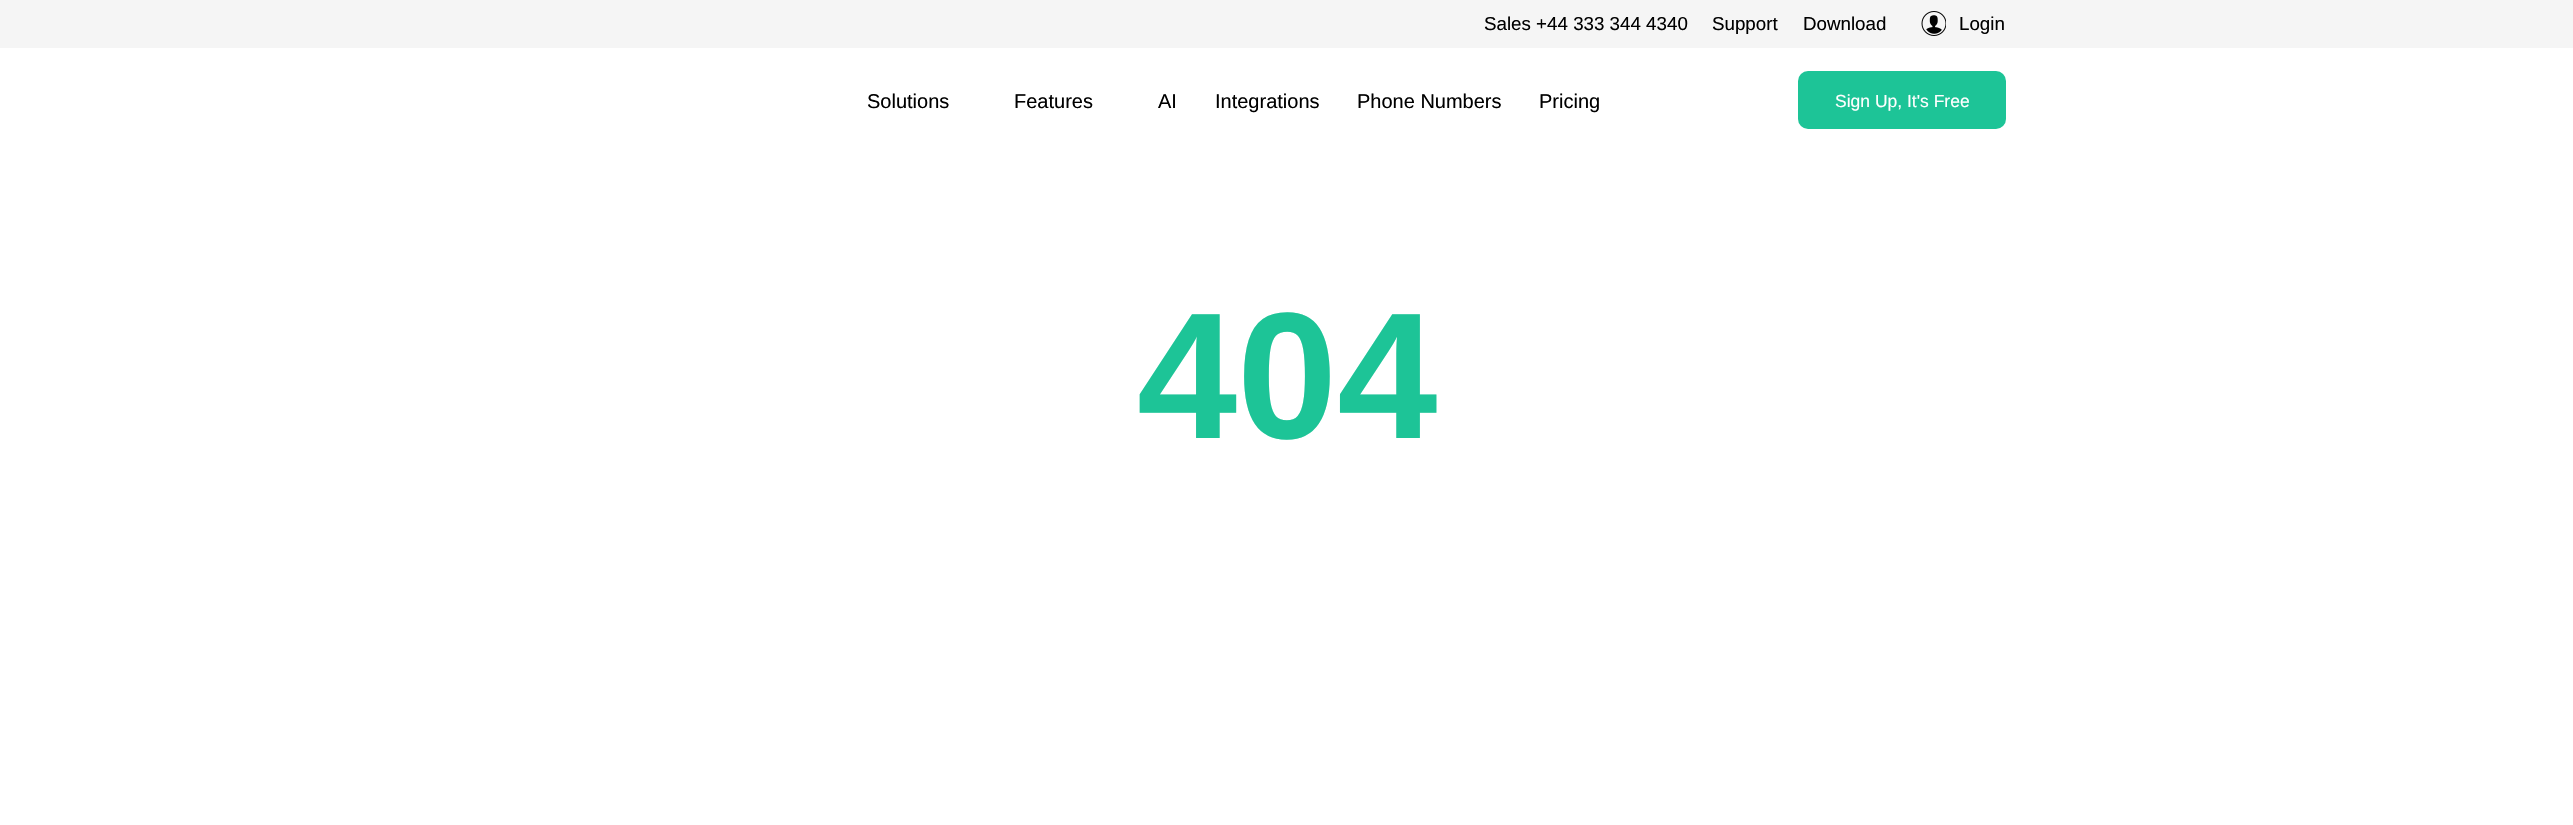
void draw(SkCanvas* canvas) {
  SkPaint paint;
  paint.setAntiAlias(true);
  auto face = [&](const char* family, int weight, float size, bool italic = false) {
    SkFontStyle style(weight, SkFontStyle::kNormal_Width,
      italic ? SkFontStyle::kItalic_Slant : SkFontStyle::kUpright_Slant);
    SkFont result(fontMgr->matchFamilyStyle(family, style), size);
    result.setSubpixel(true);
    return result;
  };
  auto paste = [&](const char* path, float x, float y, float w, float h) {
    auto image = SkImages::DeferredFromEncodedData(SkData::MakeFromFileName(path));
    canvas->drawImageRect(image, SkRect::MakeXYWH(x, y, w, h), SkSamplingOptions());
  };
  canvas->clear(0xffffffff);
  paint.setColor(0xfff5f5f5);
  canvas->drawRect(SkRect::MakeXYWH(0, 0, 2573, 48), paint);
  paste("img/1.png", 1921, 11, 25, 25);
  paint.setColor(0xff1dc497);
  canvas->drawRoundRect(SkRect::MakeXYWH(1798, 71, 208, 58), 10, 10, paint);
  auto f0 = face("Liberation Sans", 400, 18.75f);
  paint.setColor(0xff000000);
  {
    const struct { const char* s; float x, y; } items[] = {
      {"Sales +44 333 344 4340", 1484, 30},
      {"Support", 1712, 30},
      {"Download", 1803, 30},
      {"Login", 1959, 30},
    };
    for (auto [s, x, y] : items) {
      canvas->drawString(s, x, y, f0, paint);
    }
  }
  auto f1 = face("Liberation Sans", 400, 20);
  {
    const struct { const char* s; float x, y; } items[] = {
      {"Solutions", 867, 108},
      {"Features", 1014, 108},
      {"AI", 1158, 108},
      {"Integrations", 1215, 108},
      {"Phone Numbers", 1357, 108},
      {"Pricing", 1539, 108},
    };
    for (auto [s, x, y] : items) {
      canvas->drawString(s, x, y, f1, paint);
    }
  }
  auto f2 = face("Liberation Sans", 400, 17.5f);
  paint.setColor(0xffffffff);
  canvas->drawString("Sign Up, It's Free", 1835, 107, f2, paint);
  auto f3 = face("Liberation Sans", 700, 180);
  paint.setColor(0xff1dc497);
  canvas->drawString("404", 1137, 438, f3, paint);
}
